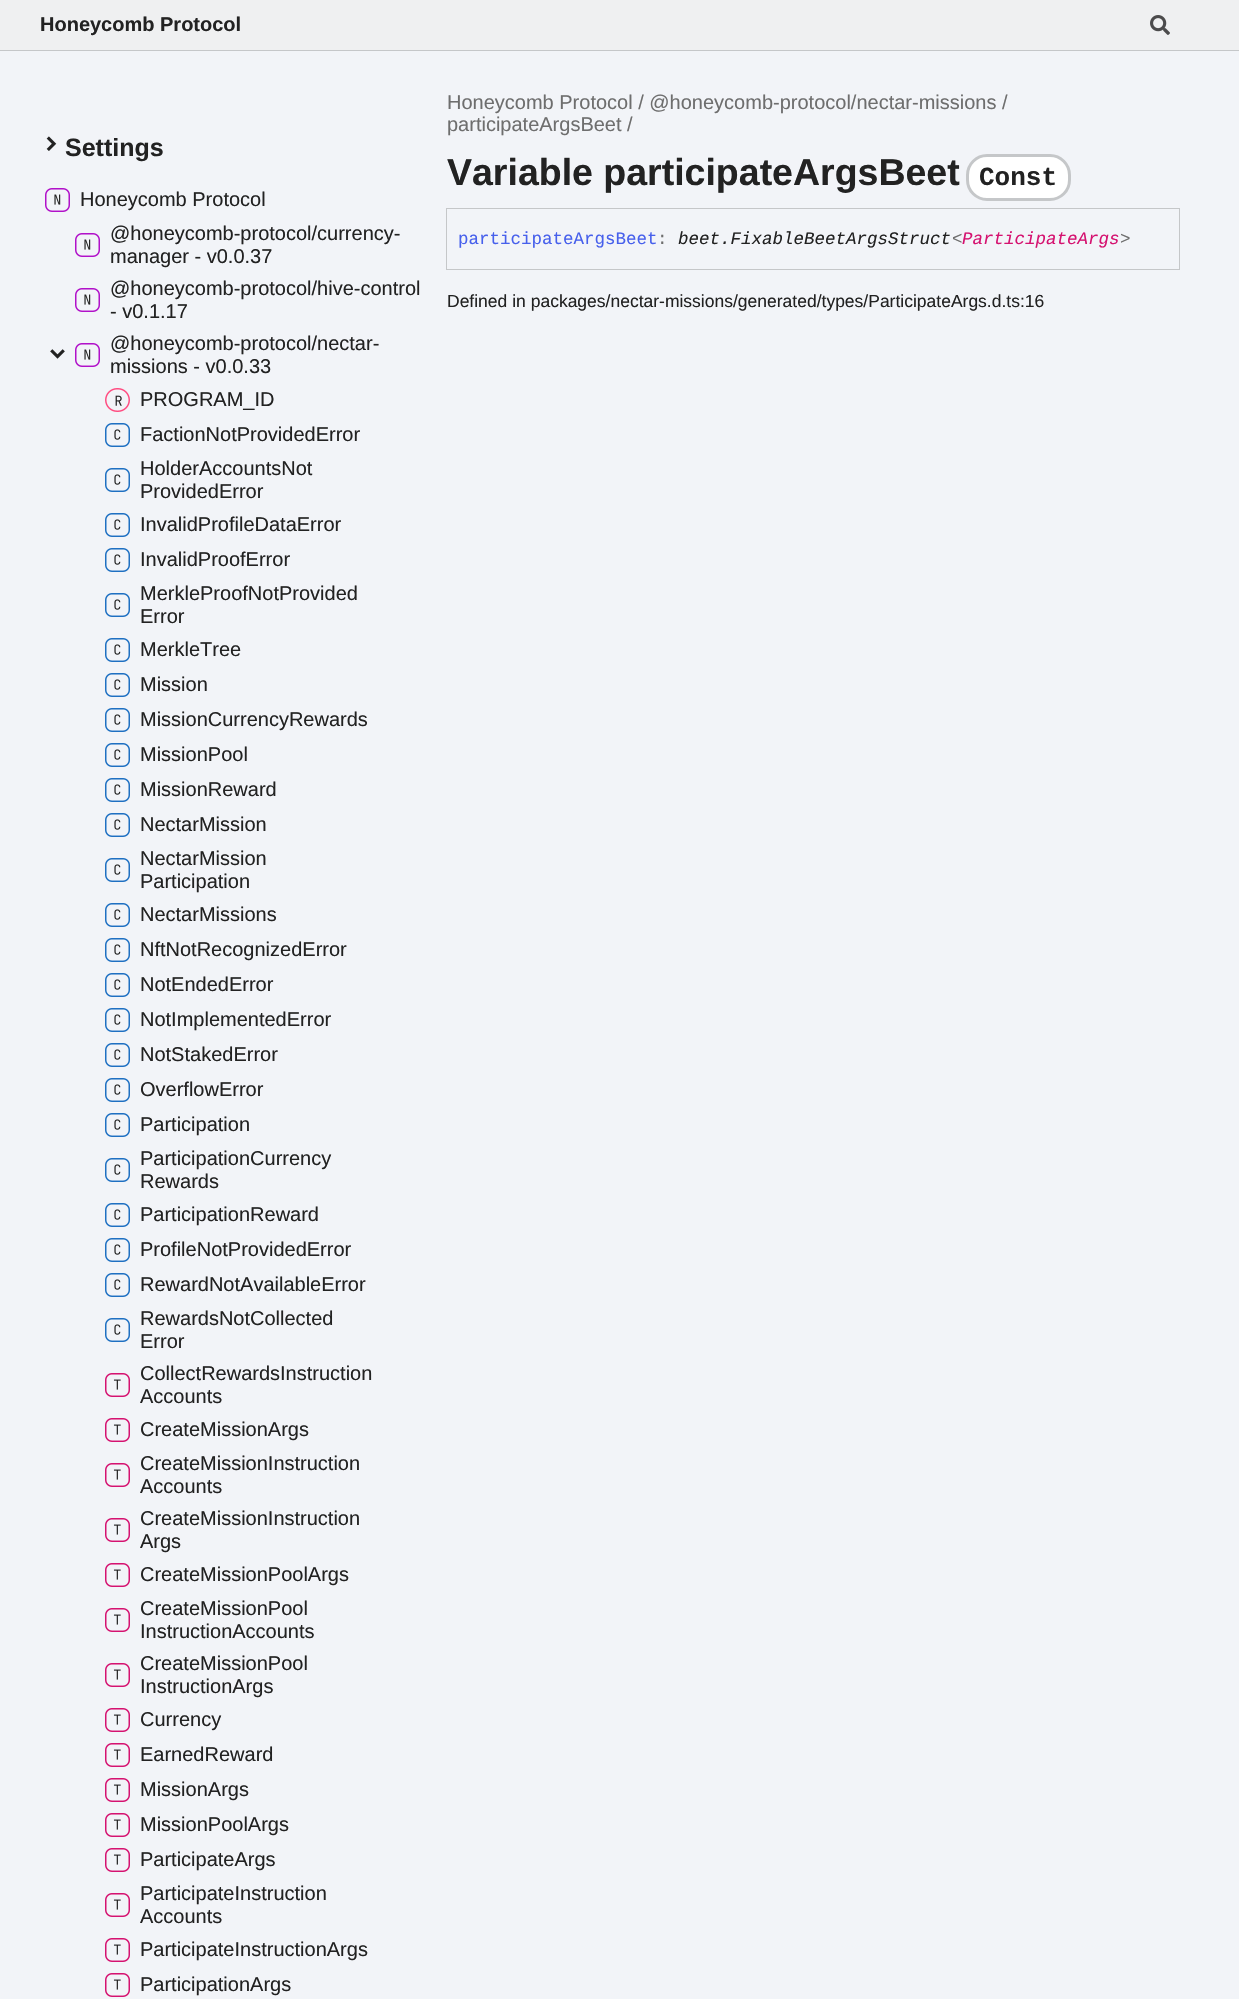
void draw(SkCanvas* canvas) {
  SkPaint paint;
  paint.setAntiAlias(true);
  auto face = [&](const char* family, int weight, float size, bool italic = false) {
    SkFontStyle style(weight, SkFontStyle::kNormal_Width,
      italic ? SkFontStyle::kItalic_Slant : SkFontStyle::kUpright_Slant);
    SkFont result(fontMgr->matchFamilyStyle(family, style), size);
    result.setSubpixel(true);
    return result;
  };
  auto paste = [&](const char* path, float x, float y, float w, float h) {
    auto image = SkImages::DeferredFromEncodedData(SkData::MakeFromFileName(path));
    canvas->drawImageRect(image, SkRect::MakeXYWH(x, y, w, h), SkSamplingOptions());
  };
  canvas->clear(0xfff2f4f8);
  paint.setColor(0xffeff0f1);
  canvas->drawRect(SkRect::MakeXYWH(0, 0, 1239, 50), paint);
  paint.setColor(0xffc5c7c9);
  canvas->drawRect(SkRect::MakeXYWH(0, 50, 1239, 1), paint);
  paste("img/1.png", 1150, 15, 20, 20);
  paste("img/2.png", 46, 136, 11, 15);
  paste("img/3.png", 45, 188, 25, 24);
  paste("img/3.png", 75, 233, 25, 24);
  paste("img/3.png", 75, 288, 25, 24);
  paste("img/4.png", 50, 349, 15, 10);
  paste("img/3.png", 75, 343, 25, 24);
  paste("img/5.png", 105, 388, 25, 24);
  paste("img/6.png", 105, 423, 25, 24);
  paste("img/6.png", 105, 468, 25, 24);
  paste("img/6.png", 105, 513, 25, 24);
  paste("img/6.png", 105, 548, 25, 24);
  paste("img/6.png", 105, 593, 25, 24);
  paste("img/6.png", 105, 638, 25, 24);
  paste("img/6.png", 105, 673, 25, 24);
  paste("img/6.png", 105, 708, 25, 24);
  paste("img/6.png", 105, 743, 25, 24);
  paste("img/6.png", 105, 778, 25, 24);
  paste("img/6.png", 105, 813, 25, 24);
  paste("img/6.png", 105, 858, 25, 24);
  paste("img/6.png", 105, 903, 25, 24);
  paste("img/6.png", 105, 938, 25, 24);
  paste("img/6.png", 105, 973, 25, 24);
  paste("img/6.png", 105, 1008, 25, 24);
  paste("img/6.png", 105, 1043, 25, 24);
  paste("img/6.png", 105, 1078, 25, 24);
  paste("img/6.png", 105, 1113, 25, 24);
  paste("img/6.png", 105, 1158, 25, 24);
  paste("img/6.png", 105, 1203, 25, 24);
  paste("img/6.png", 105, 1238, 25, 24);
  paste("img/6.png", 105, 1273, 25, 24);
  paste("img/6.png", 105, 1318, 25, 24);
  paste("img/7.png", 105, 1373, 25, 24);
  paste("img/7.png", 105, 1418, 25, 24);
  paste("img/7.png", 105, 1463, 25, 24);
  paste("img/7.png", 105, 1518, 25, 24);
  paste("img/7.png", 105, 1563, 25, 24);
  paste("img/7.png", 105, 1608, 25, 24);
  paste("img/7.png", 105, 1663, 25, 24);
  paste("img/7.png", 105, 1708, 25, 24);
  paste("img/7.png", 105, 1743, 25, 24);
  paste("img/7.png", 105, 1778, 25, 24);
  paste("img/7.png", 105, 1813, 25, 24);
  paste("img/7.png", 105, 1848, 25, 24);
  paste("img/7.png", 105, 1893, 25, 24);
  paste("img/7.png", 105, 1938, 25, 24);
  paste("img/7.png", 105, 1973, 25, 24);
  paint.setColor(0xffffffff);
  canvas->drawRoundRect(SkRect::MakeXYWH(967.5f, 155.5f, 102, 44), 19.5f, 19.5f, paint);
  paint.setStroke(true);
  paint.setStrokeWidth(3);
  paint.setColor(0xffc5c7c9);
  canvas->drawRoundRect(SkRect::MakeXYWH(967.5f, 155.5f, 102, 44), 19.5f, 19.5f, paint);
  paint.setStrokeWidth(1);
  canvas->drawRect(SkRect::MakeXYWH(446.5f, 208.5f, 733, 61), paint);
  auto f0 = face("Liberation Sans", 700, 20);
  paint.setStroke(false);
  paint.setColor(0xff222222);
  canvas->drawString("Honeycomb Protocol", 40, 31, f0, paint);
  auto f1 = face("Liberation Sans", 700, 25);
  canvas->drawString("Settings", 65, 156, f1, paint);
  auto f2 = face("Liberation Sans", 400, 20);
  {
    const struct { const char* s; float x, y; } items[] = {
      {"Honeycomb Protocol", 80, 206},
      {"@honeycomb-protocol/currency-", 110, 240},
      {"manager - v0.0.37", 110, 263},
      {"@honeycomb-protocol/hive-control", 110, 295},
      {"- v0.1.17", 110, 318},
      {"@honeycomb-protocol/nectar-", 110, 350},
      {"missions - v0.0.33", 110, 373},
      {"PROGRAM_ID", 140, 406},
      {"FactionNotProvidedError", 140, 441},
      {"HolderAccountsNot", 140, 475},
      {"ProvidedError", 140, 498},
      {"InvalidProfileDataError", 140, 531},
      {"InvalidProofError", 140, 566},
      {"MerkleProofNotProvided", 140, 600},
      {"Error", 140, 623},
      {"MerkleTree", 140, 656},
      {"Mission", 140, 691},
      {"MissionCurrencyRewards", 140, 726},
      {"MissionPool", 140, 761},
      {"MissionReward", 140, 796},
      {"NectarMission", 140, 831},
      {"NectarMission", 140, 865},
      {"Participation", 140, 888},
      {"NectarMissions", 140, 921},
      {"NftNotRecognizedError", 140, 956},
      {"NotEndedError", 140, 991},
      {"NotImplementedError", 140, 1026},
      {"NotStakedError", 140, 1061},
      {"OverflowError", 140, 1096},
      {"Participation", 140, 1131},
      {"ParticipationCurrency", 140, 1165},
      {"Rewards", 140, 1188},
      {"ParticipationReward", 140, 1221},
      {"ProfileNotProvidedError", 140, 1256},
      {"RewardNotAvailableError", 140, 1291},
      {"RewardsNotCollected", 140, 1325},
      {"Error", 140, 1348},
      {"CollectRewardsInstruction", 140, 1380},
      {"Accounts", 140, 1403},
      {"CreateMissionArgs", 140, 1436},
      {"CreateMissionInstruction", 140, 1470},
      {"Accounts", 140, 1493},
      {"CreateMissionInstruction", 140, 1525},
      {"Args", 140, 1548},
      {"CreateMissionPoolArgs", 140, 1581},
      {"CreateMissionPool", 140, 1615},
      {"InstructionAccounts", 140, 1638},
      {"CreateMissionPool", 140, 1670},
      {"InstructionArgs", 140, 1693},
      {"Currency", 140, 1726},
      {"EarnedReward", 140, 1761},
      {"MissionArgs", 140, 1796},
      {"MissionPoolArgs", 140, 1831},
      {"ParticipateArgs", 140, 1866},
      {"ParticipateInstruction", 140, 1900},
      {"Accounts", 140, 1923},
      {"ParticipateInstructionArgs", 140, 1956},
      {"ParticipationArgs", 140, 1991},
    };
    for (auto [s, x, y] : items) {
      canvas->drawString(s, x, y, f2, paint);
    }
  }
  paint.setColor(0xff6e6e6e);
  canvas->drawString("Honeycomb Protocol / @honeycomb-protocol/nectar-missions /", 447, 109, f2, paint);
  canvas->drawString("participateArgsBeet /", 447, 131, f2, paint);
  auto f3 = face("Liberation Sans", 700, 37.5f);
  paint.setColor(0xff222222);
  canvas->drawString("Variable participateArgsBeet", 447, 185, f3, paint);
  auto f4 = face("Liberation Mono", 700, 26);
  canvas->drawString("Const", 979, 185, f4, paint);
  auto f5 = face("Liberation Mono", 400, 17.5f);
  paint.setColor(0xff4760ec);
  canvas->drawString("participateArgsBeet", 458, 244, f5, paint);
  paint.setColor(0xff6e6e6e);
  canvas->drawString(":", 657, 244, f5, paint);
  auto f6 = face("Liberation Mono", 400, 17.5f, true);
  paint.setColor(0xff222222);
  canvas->drawString("beet.FixableBeetArgsStruct", 678, 244, f6, paint);
  paint.setColor(0xff6e6e6e);
  canvas->drawString("<", 952, 244, f5, paint);
  paint.setColor(0xffd51270);
  canvas->drawString("ParticipateArgs", 962, 244, f6, paint);
  paint.setColor(0xff6e6e6e);
  canvas->drawString(">", 1120, 244, f5, paint);
  auto f7 = face("Liberation Sans", 400, 17.5f);
  paint.setColor(0xff222222);
  canvas->drawString("Defined in packages/nectar-missions/generated/types/ParticipateArgs.d.ts:16", 447, 307, f7, paint);
}
